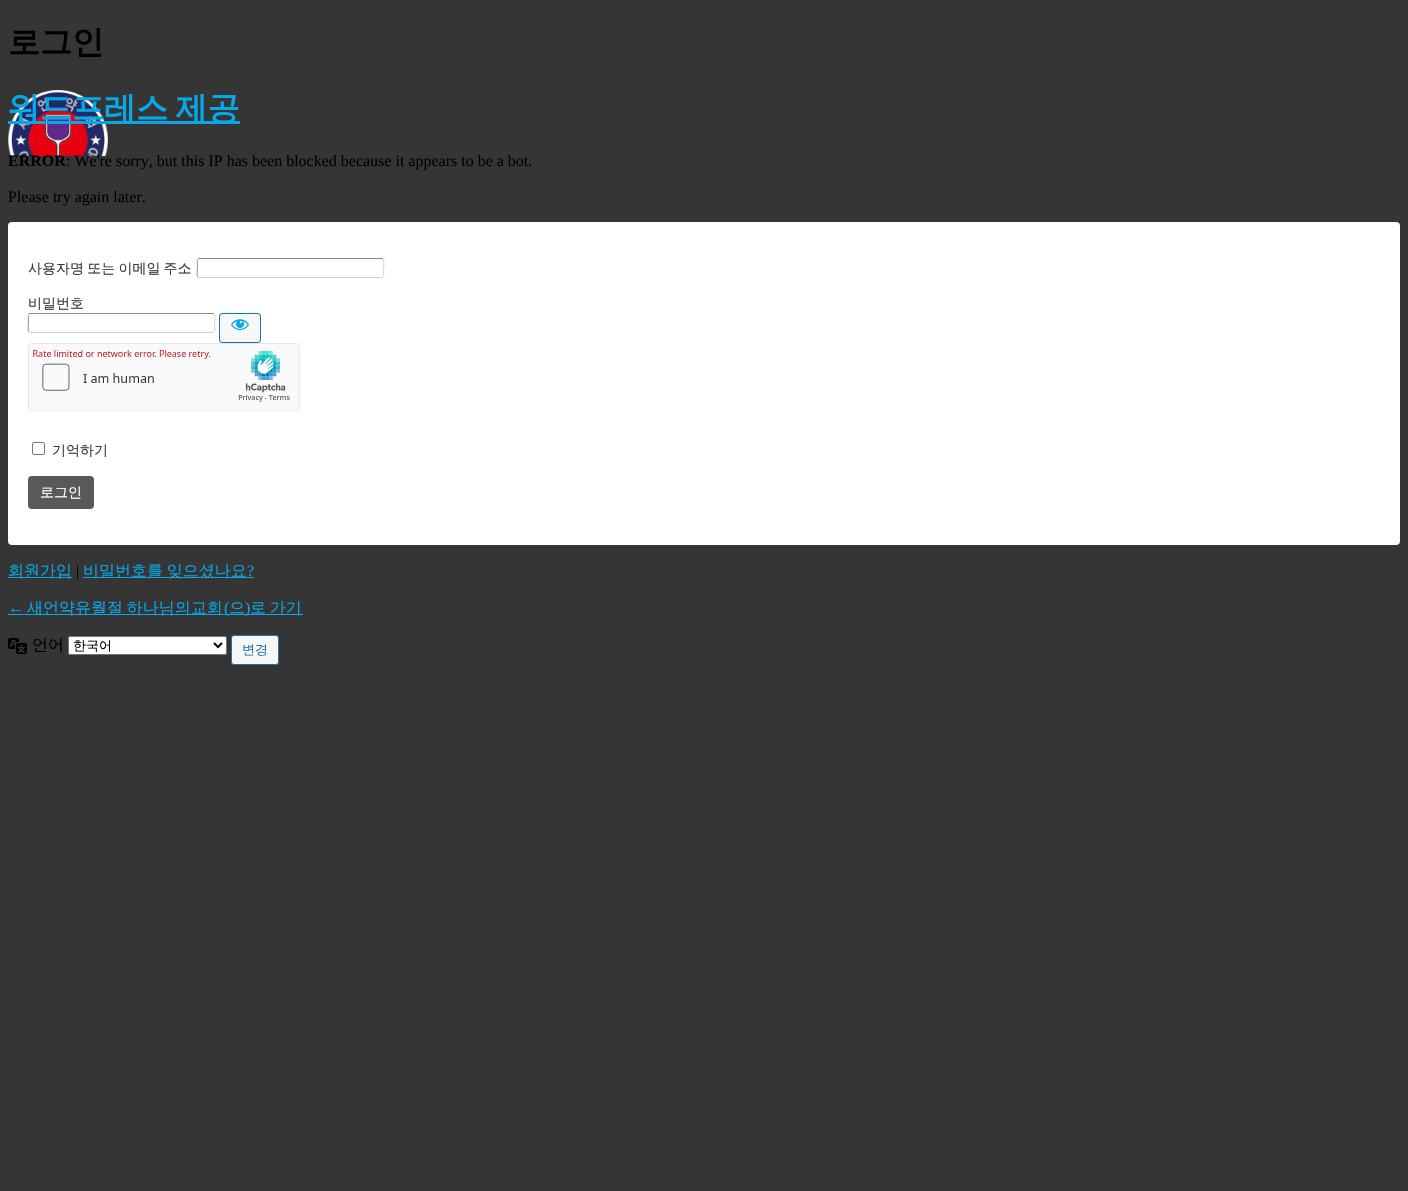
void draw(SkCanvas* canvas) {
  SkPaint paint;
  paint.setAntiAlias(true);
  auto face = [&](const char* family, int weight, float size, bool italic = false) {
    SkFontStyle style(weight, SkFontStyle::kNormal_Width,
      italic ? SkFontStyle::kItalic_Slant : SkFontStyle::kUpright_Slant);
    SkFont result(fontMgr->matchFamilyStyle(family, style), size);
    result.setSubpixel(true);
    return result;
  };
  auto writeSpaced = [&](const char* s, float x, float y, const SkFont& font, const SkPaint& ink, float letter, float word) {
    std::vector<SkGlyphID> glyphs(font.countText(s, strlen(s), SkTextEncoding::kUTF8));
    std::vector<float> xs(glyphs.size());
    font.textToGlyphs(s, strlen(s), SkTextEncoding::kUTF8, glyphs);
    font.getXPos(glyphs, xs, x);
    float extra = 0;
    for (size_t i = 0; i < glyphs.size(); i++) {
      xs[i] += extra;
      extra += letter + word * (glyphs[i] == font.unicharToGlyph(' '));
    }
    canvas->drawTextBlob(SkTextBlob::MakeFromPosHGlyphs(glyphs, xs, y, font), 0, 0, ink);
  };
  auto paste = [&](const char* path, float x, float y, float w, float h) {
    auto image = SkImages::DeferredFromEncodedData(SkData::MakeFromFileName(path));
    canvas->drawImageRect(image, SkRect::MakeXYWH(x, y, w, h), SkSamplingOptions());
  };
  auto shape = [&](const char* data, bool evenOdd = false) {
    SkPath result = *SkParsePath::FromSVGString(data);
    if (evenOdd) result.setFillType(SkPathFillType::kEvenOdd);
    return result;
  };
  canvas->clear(0xff353535);
  paste("img/1.png", 8, 90, 100, 66);
  paint.setColor(0xff06a8e8);
  canvas->drawRect(SkRect::MakeXYWH(8, 121, 232, 3), paint);
  paint.setColor(0xffffffff);
  canvas->drawRoundRect(SkRect::MakeXYWH(8, 222, 1392, 323), 4, 4, paint);
  paint.setStroke(true);
  paint.setStrokeWidth(1);
  paint.setColor(0xffd1d1d1);
  canvas->drawPath(shape("M383 259C384.5 260 383.5 268.5 383.5 270.5C383.5 271.5 384.5 277.5 382 277.5H199L198 277"), paint);
  paint.setColor(0xff8b8b8b);
  canvas->drawPath(shape("M198 277C196.5 276 197.5 267.5 197.5 265.5C197.5 264.5 196.5 258.5 199 258.5H382L383 259"), paint);
  paint.setColor(0xffd1d1d1);
  canvas->drawPath(shape("M214 314C215.5 315 214.5 323.5 214.5 325.5C214.5 326.5 215.5 332.5 213 332.5H30L29 332"), paint);
  paint.setColor(0xff8b8b8b);
  canvas->drawPath(shape("M29 332C27.5 331 28.5 322.5 28.5 320.5C28.5 319.5 27.5 313.5 30 313.5H213L214 314"), paint);
  paint.setStroke(false);
  paint.setColor(0xfff6f7f7);
  canvas->drawRoundRect(SkRect::MakeXYWH(219.5f, 313.5f, 41, 29), 2.5f, 2.5f, paint);
  paint.setStroke(true);
  paint.setColor(0xff2271b1);
  canvas->drawRoundRect(SkRect::MakeXYWH(219.5f, 313.5f, 41, 29), 2.5f, 2.5f, paint);
  paste("img/2.png", 231, 319, 18, 12);
  paste("img/3.png", 28, 343, 272, 69);
  paint.setColor(0xff767676);
  canvas->drawRoundRect(SkRect::MakeXYWH(32.5f, 442.5f, 12, 12), 1.5f, 1.5f, paint);
  paint.setStroke(false);
  paint.setColor(0xff595959);
  canvas->drawRoundRect(SkRect::MakeXYWH(28, 476, 66, 33), 4, 4, paint);
  {
    const struct { float x, y, w, h; SkColor color; } items[] = {
      {8, 577, 64, 1, 0xff06a8e8},
      {83, 577, 171, 1, 0xff06a8e8},
      {8, 614, 295, 1, 0xff06a8e8},
    };
    for (auto [x, y, w, h, color] : items) {
      paint.setColor(color);
      canvas->drawRect(SkRect::MakeXYWH(x, y, w, h), paint);
    }
  }
  paste("img/4.png", 8, 638, 19, 16);
  paint.setColor(0xffffffff);
  canvas->drawRoundRect(SkRect::MakeXYWH(68.5f, 636.5f, 158, 18), 1.5f, 1.5f, paint);
  paint.setStroke(true);
  paint.setColor(0xff767676);
  canvas->drawRoundRect(SkRect::MakeXYWH(68.5f, 636.5f, 158, 18), 1.5f, 1.5f, paint);
  paint.setStrokeWidth(2);
  paint.setColor(0xff000000);
  canvas->drawPath(shape("M214 643L218 647L222 643"), paint);
  paint.setStroke(false);
  paint.setColor(0xfff6f7f7);
  canvas->drawRoundRect(SkRect::MakeXYWH(231.5f, 635.5f, 47, 29), 2.5f, 2.5f, paint);
  paint.setStroke(true);
  paint.setStrokeWidth(1);
  paint.setColor(0xff2271b1);
  canvas->drawRoundRect(SkRect::MakeXYWH(231.5f, 635.5f, 47, 29), 2.5f, 2.5f, paint);
  auto f0 = face("WenQuanYi Zen Hei", 700, 32);
  paint.setStroke(false);
  paint.setColor(0xff000000);
  canvas->drawString("로그인", 8, 53, f0, paint);
  paint.setColor(0xff06a8e8);
  writeSpaced("워드프레스 제공", 8, 119, f0, paint, 0, -2);
  auto f1 = face("Liberation Serif", 700, 16);
  paint.setColor(0xff000000);
  canvas->drawString("ERROR", 8, 166, f1, paint);
  auto f2 = face("Liberation Serif", 400, 16);
  canvas->drawString(": We're sorry, but this IP has been blocked because it appears to be a bot.", 66, 166, f2, paint);
  canvas->drawString("Please try again later.", 8, 202, f2, paint);
  auto f3 = face("WenQuanYi Zen Hei", 500, 14);
  paint.setColor(0xff383838);
  writeSpaced("사용자명 또는 이메일 주소", 28, 273, f3, paint, 0, -1);
  canvas->drawString("비밀번호", 28, 308, f3, paint);
  canvas->drawString("기억하기", 52, 455, f3, paint);
  paint.setColor(0xffffffff);
  canvas->drawString("로그인", 40, 497, f3, paint);
  auto f4 = face("WenQuanYi Zen Hei", 500, 16);
  paint.setColor(0xff06a8e8);
  canvas->drawString("회원가입", 8, 576, f4, paint);
  paint.setColor(0xff000000);
  canvas->drawString("|", 76, 576, f2, paint);
  paint.setColor(0xff06a8e8);
  writeSpaced("비밀번호를 잊으셨나요", 83, 576, f4, paint, 0, -1);
  canvas->drawString("?", 247, 576, f2, paint);
  canvas->drawString("←", 8, 613, f2, paint);
  writeSpaced("새언약유월절 하나님의교회", 27, 613, f4, paint, 0, -1);
  canvas->drawString("(", 224, 613, f2, paint);
  canvas->drawString("으", 229, 613, f4, paint);
  canvas->drawString(")", 245, 613, f2, paint);
  writeSpaced("로 가기", 250, 613, f4, paint, 0, -1);
  paint.setColor(0xff000000);
  canvas->drawString("언어", 32, 650, f4, paint);
  auto f5 = face("WenQuanYi Zen Hei", 500, 13);
  canvas->drawString("한국어", 73, 650, f5, paint);
  paint.setColor(0xff2271b1);
  canvas->drawString("변경", 242, 654, f5, paint);
}
